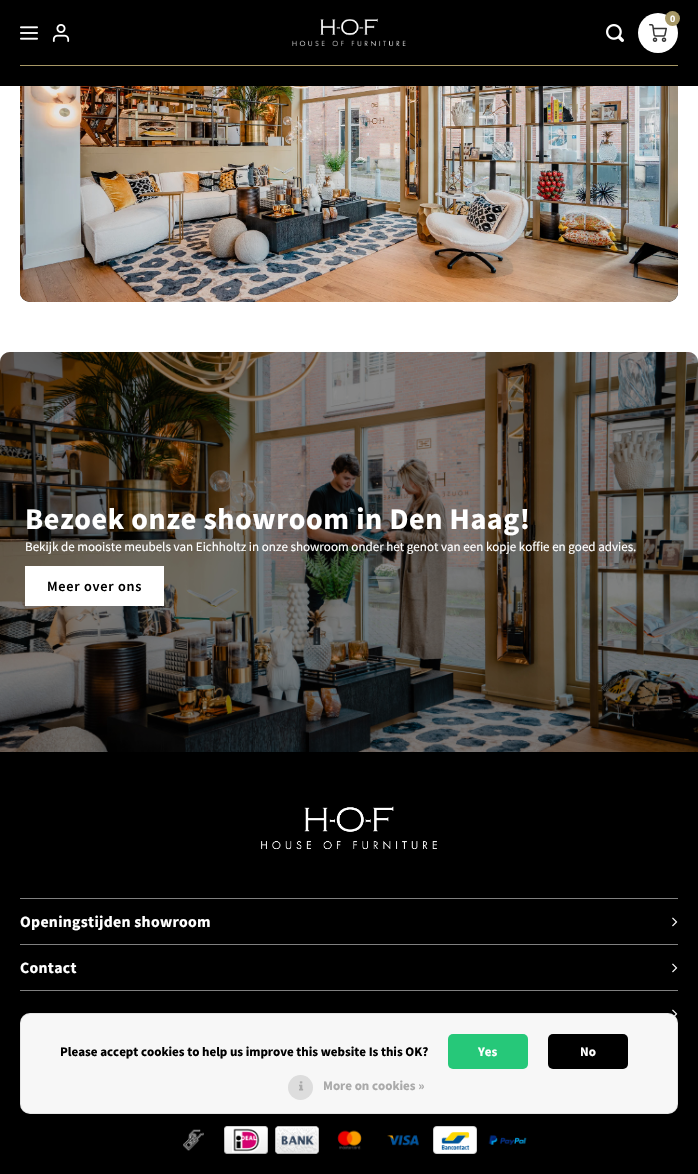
void draw(SkCanvas* canvas) {
  SkPaint paint;
  paint.setAntiAlias(true);
  auto face = [&](const char* family, int weight, float size, bool italic = false) {
    SkFontStyle style(weight, SkFontStyle::kNormal_Width,
      italic ? SkFontStyle::kItalic_Slant : SkFontStyle::kUpright_Slant);
    SkFont result(fontMgr->matchFamilyStyle(family, style), size);
    result.setSubpixel(true);
    return result;
  };
  auto writeSpaced = [&](const char* s, float x, float y, const SkFont& font, const SkPaint& ink, float letter, float word) {
    std::vector<SkGlyphID> glyphs(font.countText(s, strlen(s), SkTextEncoding::kUTF8));
    std::vector<float> xs(glyphs.size());
    font.textToGlyphs(s, strlen(s), SkTextEncoding::kUTF8, glyphs);
    font.getXPos(glyphs, xs, x);
    float extra = 0;
    for (size_t i = 0; i < glyphs.size(); i++) {
      xs[i] += extra;
      extra += letter + word * (glyphs[i] == font.unicharToGlyph(' '));
    }
    canvas->drawTextBlob(SkTextBlob::MakeFromPosHGlyphs(glyphs, xs, y, font), 0, 0, ink);
  };
  auto paste = [&](const char* path, float x, float y, float w, float h) {
    auto image = SkImages::DeferredFromEncodedData(SkData::MakeFromFileName(path));
    canvas->drawImageRect(image, SkRect::MakeXYWH(x, y, w, h), SkSamplingOptions());
  };
  auto shape = [&](const char* data, bool evenOdd = false) {
    SkPath result = *SkParsePath::FromSVGString(data);
    if (evenOdd) result.setFillType(SkPathFillType::kEvenOdd);
    return result;
  };
  canvas->clear(0xffffffff);
  paint.setColor(0xff000000);
  canvas->drawRoundRect(SkRect::MakeXYWH(20, -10, 658, 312), 10, 10, paint);
  paste("img/1.png", 20, 86, 658, 216);
  canvas->drawRect(SkRect::MakeXYWH(0, 0, 698, 86), paint);
  paste("img/2.png", 20, 26, 18, 14);
  paste("img/3.png", 52, 24, 18, 18);
  paste("img/4.png", 292, 18, 114, 29);
  paint.setColor(0xffffffff);
  canvas->drawCircle(658, 33, 20, paint);
  paste("img/5.png", 649, 24, 18, 18);
  paint.setColor(0xffa79866);
  canvas->drawCircle(672.5f, 18.5f, 7.5f, paint);
  paste("img/6.png", 606, 24, 18, 18);
  canvas->drawRect(SkRect::MakeXYWH(20, 65, 658, 1), paint);
  paint.setColor(0xffeeeeee);
  canvas->drawPath(shape("M10 352H688C693.5 352 698 356.5 698 362V752H0V362C0 356.5 4.5 352 10 352Z"), paint);
  paste("img/7.png", 0, 352, 698, 400);
  paint.setColor(0x66000000);
  canvas->drawPath(shape("M10 352H688C693.5 352 698 356.5 698 362V752H0V362C0 356.5 4.5 352 10 352Z"), paint);
  paint.setColor(0xffffffff);
  canvas->drawRect(SkRect::MakeXYWH(25, 566, 139, 40), paint);
  paint.setColor(0xff000000);
  canvas->drawRect(SkRect::MakeXYWH(0, 752, 698, 422), paint);
  paste("img/8.png", 261, 806, 176, 44);
  paint.setColor(0xff808080);
  canvas->drawRect(SkRect::MakeXYWH(20, 898, 658, 1), paint);
  canvas->drawRect(SkRect::MakeXYWH(20, 944, 658, 1), paint);
  paste("img/9.png", 672, 917, 6, 10);
  canvas->drawRect(SkRect::MakeXYWH(20, 990, 658, 1), paint);
  paste("img/9.png", 672, 963, 6, 10);
  paste("img/10.png", 672, 1009, 6, 8);
  paste("img/11.png", 183, 1129, 21, 22);
  paste("img/12.png", 224, 1126, 44, 28);
  paste("img/13.png", 275, 1126, 44, 28);
  paste("img/14.png", 337, 1130, 25, 20);
  paste("img/15.png", 387, 1135, 32, 11);
  paste("img/16.png", 433, 1126, 44, 28);
  paste("img/17.png", 488, 1135, 39, 10);
  paint.setColor(0xfff7f7f7);
  canvas->drawRoundRect(SkRect::MakeXYWH(20, 1013, 658, 101), 10, 10, paint);
  paint.setStroke(true);
  paint.setStrokeWidth(1);
  paint.setColor(0x12000000);
  canvas->drawRoundRect(SkRect::MakeXYWH(20.5f, 1013.5f, 657, 100), 9.5f, 9.5f, paint);
  paint.setStroke(false);
  paint.setColor(0xff26c879);
  canvas->drawRoundRect(SkRect::MakeXYWH(448, 1034, 80, 35), 5, 5, paint);
  paint.setColor(0xff000000);
  canvas->drawRoundRect(SkRect::MakeXYWH(548, 1034, 80, 35), 5, 5, paint);
  paint.setColor(0xffdddddd);
  canvas->drawCircle(300.5f, 1087.5f, 12.5f, paint);
  paste("img/18.png", 299, 1081, 5, 10);
  auto f0 = face("Source Sans Pro", 700, 10);
  paint.setColor(0xffffffff);
  canvas->drawString("0", 670, 22, f0, paint);
  auto f1 = face("Source Sans Pro", 700, 30);
  writeSpaced("Bezoek onze showroom in Den Haag!", 25, 529, f1, paint, 0.6f, 0);
  auto f2 = face("Source Sans Pro", 400, 13);
  canvas->drawString("Bekijk de mooiste meubels van Eichholtz in onze showroom onder het genot van een kopje koffie en goed advies.", 25, 551, f2, paint);
  auto f3 = face("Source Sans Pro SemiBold", 600, 14.25f);
  paint.setColor(0xff000000);
  writeSpaced("Meer over ons", 47, 591, f3, paint, 0.75f, 0);
  auto f4 = face("Source Sans Pro", 700, 15.75f);
  paint.setColor(0xffffffff);
  writeSpaced("Openingstijden showroom", 20, 927, f4, paint, 0.3f, 0);
  writeSpaced("Contact", 20, 973, f4, paint, 0.3f, 0);
  auto f5 = face("Source Sans Pro", 700, 13);
  paint.setColor(0xff000000);
  canvas->drawString("Please accept cookies to help us improve this website Is this OK?", 60, 1056, f5, paint);
  paint.setColor(0xffffffff);
  canvas->drawString("Yes", 478, 1056, f5, paint);
  canvas->drawString("No", 580, 1056, f5, paint);
  paint.setColor(0xffaaaaaa);
  canvas->drawString("More on cookies »", 323, 1090, f5, paint);
}
